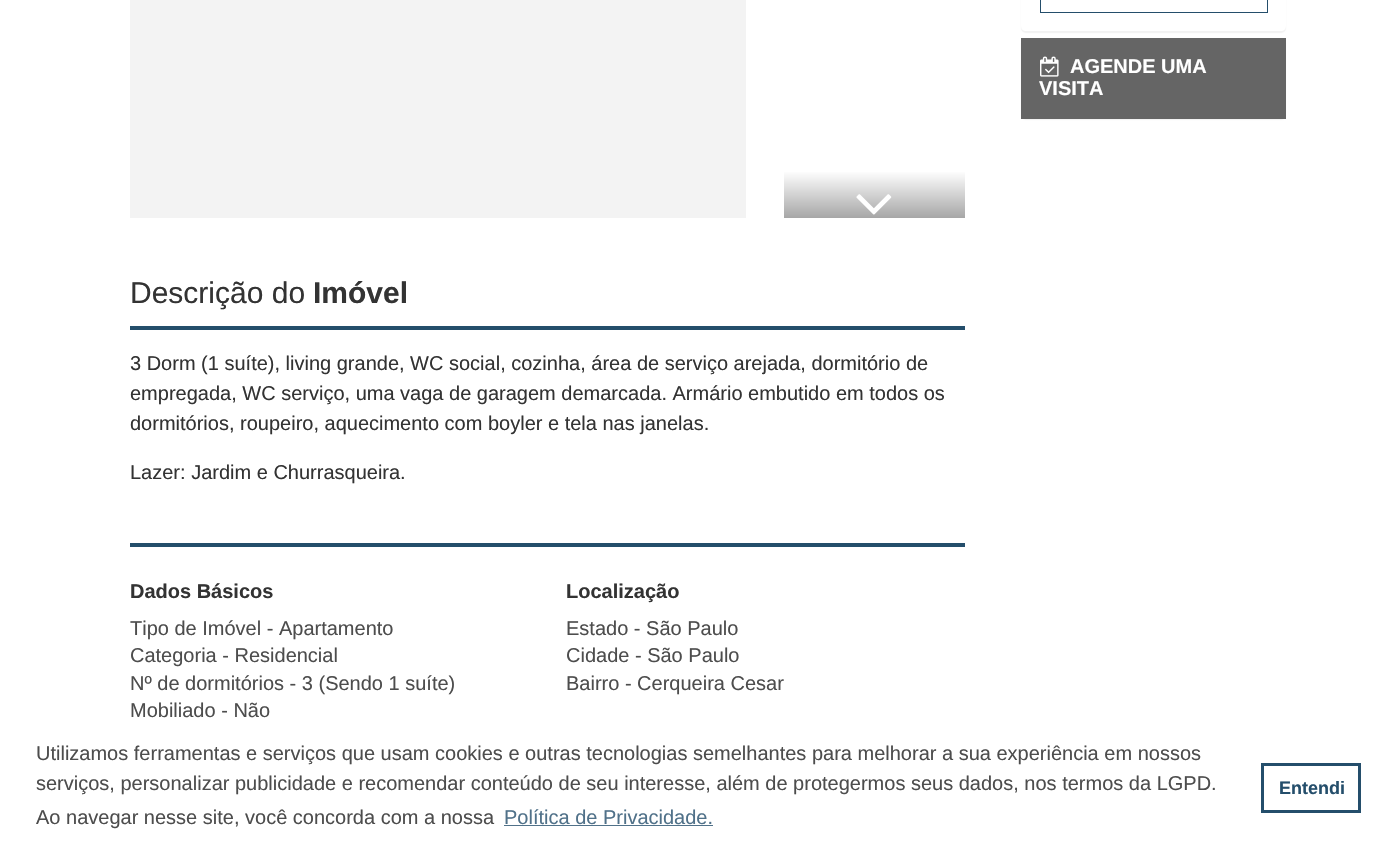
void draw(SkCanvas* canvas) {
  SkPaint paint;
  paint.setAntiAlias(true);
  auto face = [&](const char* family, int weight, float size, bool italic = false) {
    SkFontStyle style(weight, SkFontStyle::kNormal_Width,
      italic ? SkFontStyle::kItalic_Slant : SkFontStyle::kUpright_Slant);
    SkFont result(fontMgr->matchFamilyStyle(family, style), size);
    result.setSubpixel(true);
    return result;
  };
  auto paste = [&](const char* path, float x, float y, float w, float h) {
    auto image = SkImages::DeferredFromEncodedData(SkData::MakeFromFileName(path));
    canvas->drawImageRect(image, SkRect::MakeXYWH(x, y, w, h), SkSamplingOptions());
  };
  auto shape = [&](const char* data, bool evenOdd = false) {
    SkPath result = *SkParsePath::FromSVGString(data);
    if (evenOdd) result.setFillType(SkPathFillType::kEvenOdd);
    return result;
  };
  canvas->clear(0xffffffff);
  canvas->save();
  canvas->clipPath(shape("M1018 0H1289V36H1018ZM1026-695H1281C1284-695 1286-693 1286-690V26C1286 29 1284 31 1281 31H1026C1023 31 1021 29 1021 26V-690C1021-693 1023-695 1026-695Z", true), true);
  paint.setColor(0x0d000000);
  paint.setMaskFilter(SkMaskFilter::MakeBlur(kNormal_SkBlurStyle, 0.5f));
  canvas->drawRoundRect(SkRect::MakeXYWH(1021, -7, 265, 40), 5, 5, paint);
  paint.setMaskFilter(nullptr);
  canvas->restore();
  paint.setStroke(true);
  paint.setStrokeWidth(1);
  paint.setColor(0xff244e6b);
  canvas->drawRect(SkRect::MakeXYWH(1040.5f, -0.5f, 227, 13), paint);
  paint.setStroke(false);
  paint.setColor(0x0d000000);
  paint.setMaskFilter(SkMaskFilter::MakeBlur(kNormal_SkBlurStyle, 0.5f));
  canvas->drawRoundRect(SkRect::MakeXYWH(1021, 39, 265, 81), 5, 5, paint);
  paint.setMaskFilter(nullptr);
  paint.setColor(0xff656565);
  canvas->drawRect(SkRect::MakeXYWH(1021, 38, 265, 81), paint);
  paste("img/1.png", 1040, 56, 19, 21);
  paint.setColor(0xfff3f3f3);
  canvas->drawRect(SkRect::MakeXYWH(130, 0, 616, 218), paint);
  {
    const SkColor colors[] = {0xffffffff, 0xffa6a6a6};
    const float stops[] = {0, 1};
    const SkPoint ends[] = {{874, 171}, {874, 218}};
    paint.setShader(SkGradientShader::MakeLinear(ends, colors, stops, 2, SkTileMode::kClamp));
    paint.setAlpha(255);
  }
  canvas->drawRect(SkRect::MakeXYWH(784, 172, 181, 46), paint);
  paste("img/2.png", 856, 194, 36, 21);
  paint.setShader(nullptr);
  {
    const struct { float x, y, w, h; SkColor color; } items[] = {
      {130, 326, 835, 4, 0xff244e6b},
      {130, 543, 835, 4, 0xff244e6b},
      {504, 825, 209, 1, 0xff507189},
    };
    for (auto [x, y, w, h, color] : items) {
      paint.setColor(color);
      canvas->drawRect(SkRect::MakeXYWH(x, y, w, h), paint);
    }
  }
  paint.setStroke(true);
  paint.setStrokeWidth(3);
  paint.setColor(0xff244e6b);
  canvas->drawRect(SkRect::MakeXYWH(1262.5f, 764.5f, 97, 47), paint);
  auto f0 = face("Liberation Sans", 700, 20);
  paint.setStroke(false);
  paint.setColor(0xffffffff);
  canvas->drawString("AGENDE UMA", 1070, 73, f0, paint);
  canvas->drawString("VISITA", 1039, 95, f0, paint);
  auto f1 = face("Liberation Sans", 400, 30);
  paint.setColor(0xff333333);
  canvas->drawString("Descrição do", 130, 303, f1, paint);
  auto f2 = face("Liberation Sans", 700, 30);
  canvas->drawString("Imóvel", 313, 303, f2, paint);
  auto f3 = face("Liberation Sans", 400, 20);
  {
    const struct { const char* s; float x, y; } items[] = {
      {"3 Dorm (1 suíte), living grande, WC social, cozinha, área de serviço arejada, dormitório de", 130, 370},
      {"empregada, WC serviço, uma vaga de garagem demarcada. Armário embutido em todos os", 130, 400},
      {"dormitórios, roupeiro, aquecimento com boyler e tela nas janelas.", 130, 430},
      {"Lazer: Jardim e Churrasqueira.", 130, 479},
    };
    for (auto [s, x, y] : items) {
      canvas->drawString(s, x, y, f3, paint);
    }
  }
  canvas->drawString("Dados Básicos", 130, 598, f0, paint);
  paint.setColor(0xff4d4d4d);
  {
    const struct { const char* s; float x, y; } items[] = {
      {"Tipo de Imóvel - Apartamento", 130, 635},
      {"Categoria - Residencial", 130, 662},
      {"Nº de dormitórios - 3 (Sendo 1 suíte)", 130, 690},
      {"Mobiliado - Não", 130, 717},
    };
    for (auto [s, x, y] : items) {
      canvas->drawString(s, x, y, f3, paint);
    }
  }
  paint.setColor(0xff333333);
  canvas->drawString("Localização", 566, 598, f0, paint);
  paint.setColor(0xff4d4d4d);
  {
    const struct { const char* s; float x, y; } items[] = {
      {"Estado - São Paulo", 566, 635},
      {"Cidade - São Paulo", 566, 662},
      {"Bairro - Cerqueira Cesar", 566, 690},
      {"Utilizamos ferramentas e serviços que usam cookies e outras tecnologias semelhantes para melhorar a sua experiência em nossos", 36, 760},
      {"serviços, personalizar publicidade e recomendar conteúdo de seu interesse, além de protegermos seus dados, nos termos da LGPD.", 36, 790},
      {"Ao navegar nesse site, você concorda com a nossa", 36, 824},
    };
    for (auto [s, x, y] : items) {
      canvas->drawString(s, x, y, f3, paint);
    }
  }
  paint.setColor(0xff507189);
  canvas->drawString("Política de Privacidade.", 504, 824, f3, paint);
  auto f4 = face("Liberation Sans", 700, 18);
  paint.setColor(0xff244e6b);
  canvas->drawString("Entendi", 1279, 794, f4, paint);
}
